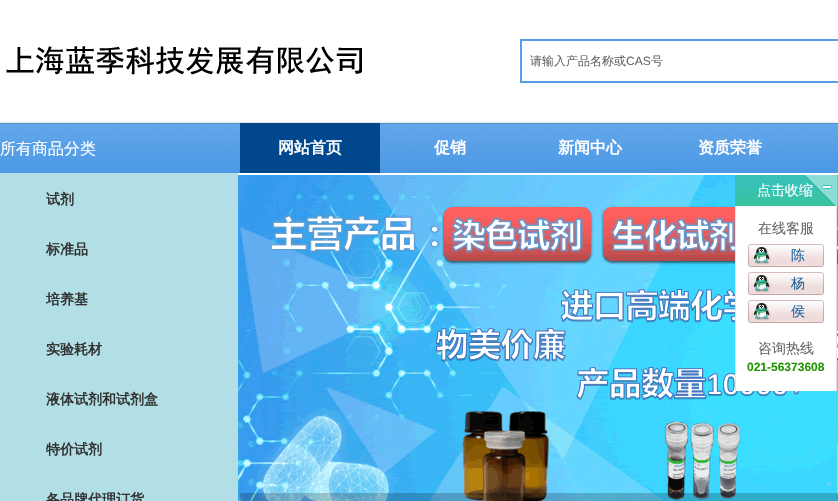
void draw(SkCanvas* canvas) {
  SkPaint paint;
  paint.setAntiAlias(true);
  auto face = [&](const char* family, int weight, float size, bool italic = false) {
    SkFontStyle style(weight, SkFontStyle::kNormal_Width,
      italic ? SkFontStyle::kItalic_Slant : SkFontStyle::kUpright_Slant);
    SkFont result(fontMgr->matchFamilyStyle(family, style), size);
    result.setSubpixel(true);
    return result;
  };
  auto paste = [&](const char* path, float x, float y, float w, float h) {
    auto image = SkImages::DeferredFromEncodedData(SkData::MakeFromFileName(path));
    canvas->drawImageRect(image, SkRect::MakeXYWH(x, y, w, h), SkSamplingOptions());
  };
  canvas->clear(0xffffffff);
  paint.setColor(0xffe8e9e7);
  canvas->drawRect(SkRect::MakeXYWH(0, 122, 838, 1), paint);
  paste("img/1.png", 6, 46, 356, 29);
  paint.setStroke(true);
  paint.setStrokeWidth(2);
  paint.setColor(0xff569fe7);
  canvas->drawRect(SkRect::MakeXYWH(521, 40, 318, 42), paint);
  paint.setStroke(false);
  paint.setColor(0xffb1dfe5);
  canvas->drawRect(SkRect::MakeXYWH(0, 173, 238, 328), paint);
  paste("img/2.png", 238, 173, 600, 328);
  paint.setColor(0x33000000);
  canvas->drawRect(SkRect::MakeXYWH(240, 493, 598, 8), paint);
  paste("img/3.png", 0, 123, 838, 50);
  paint.setColor(0xff00478d);
  canvas->drawRect(SkRect::MakeXYWH(240, 123, 140, 50), paint);
  paste("img/4.png", 735, 175, 102, 31);
  {
    const struct { float x, y, w, h; SkColor color; } items[] = {
      {736, 206, 100, 185, 0xffffffff},
      {836, 206, 1, 185, 0xffe3e3e3},
      {735, 206, 1, 185, 0xffe3e3e3},
    };
    for (auto [x, y, w, h, color] : items) {
      paint.setColor(color);
      canvas->drawRect(SkRect::MakeXYWH(x, y, w, h), paint);
    }
  }
  paste("img/5.png", 748, 244, 76, 23);
  paste("img/5.png", 748, 272, 76, 23);
  paste("img/5.png", 748, 300, 76, 23);
  auto f0 = face("WenQuanYi Zen Hei", 500, 12);
  paint.setColor(0xff666666);
  canvas->drawString("请输入产品名称或", 530, 65, f0, paint);
  auto f1 = face("Liberation Sans", 400, 12);
  canvas->drawString("CAS", 626, 65, f1, paint);
  canvas->drawString("号", 651, 65, f0, paint);
  auto f2 = face("WenQuanYi Zen Hei", 500, 16);
  paint.setColor(0xffffffff);
  canvas->drawString("所有商品分类", 0, 154, f2, paint);
  auto f3 = face("WenQuanYi Zen Hei", 700, 14);
  paint.setColor(0xff333333);
  {
    const struct { const char* s; float x, y; } items[] = {
      {"试剂", 46, 204},
      {"标准品", 46, 254},
      {"培养基", 46, 304},
      {"实验耗材", 46, 354},
      {"液体试剂和试剂盒", 46, 404},
      {"特价试剂", 46, 454},
      {"各品牌代理订货", 46, 504},
    };
    for (auto [s, x, y] : items) {
      canvas->drawString(s, x, y, f3, paint);
    }
  }
  auto f4 = face("WenQuanYi Zen Hei", 700, 16);
  paint.setColor(0xffffffff);
  {
    const struct { const char* s; float x, y; } items[] = {
      {"网站首页", 278, 153},
      {"促销", 434, 153},
      {"新闻中心", 558, 153},
      {"资质荣誉", 698, 153},
    };
    for (auto [s, x, y] : items) {
      canvas->drawString(s, x, y, f4, paint);
    }
  }
  auto f5 = face("WenQuanYi Zen Hei", 500, 14);
  canvas->drawString("点击收缩", 757, 195, f5, paint);
  paint.setColor(0xff666666);
  canvas->drawString("在线客服", 758, 233, f5, paint);
  paint.setColor(0xff1a649d);
  {
    const struct { const char* s; float x, y; } items[] = {
      {"陈", 791, 260},
      {"杨", 791, 288},
      {"侯", 791, 316},
    };
    for (auto [s, x, y] : items) {
      canvas->drawString(s, x, y, f5, paint);
    }
  }
  paint.setColor(0xff666666);
  canvas->drawString("咨询热线", 758, 353, f5, paint);
  auto f6 = face("Liberation Sans", 700, 12);
  paint.setColor(0xff209400);
  canvas->drawString("021-56373608", 747, 371, f6, paint);
}
